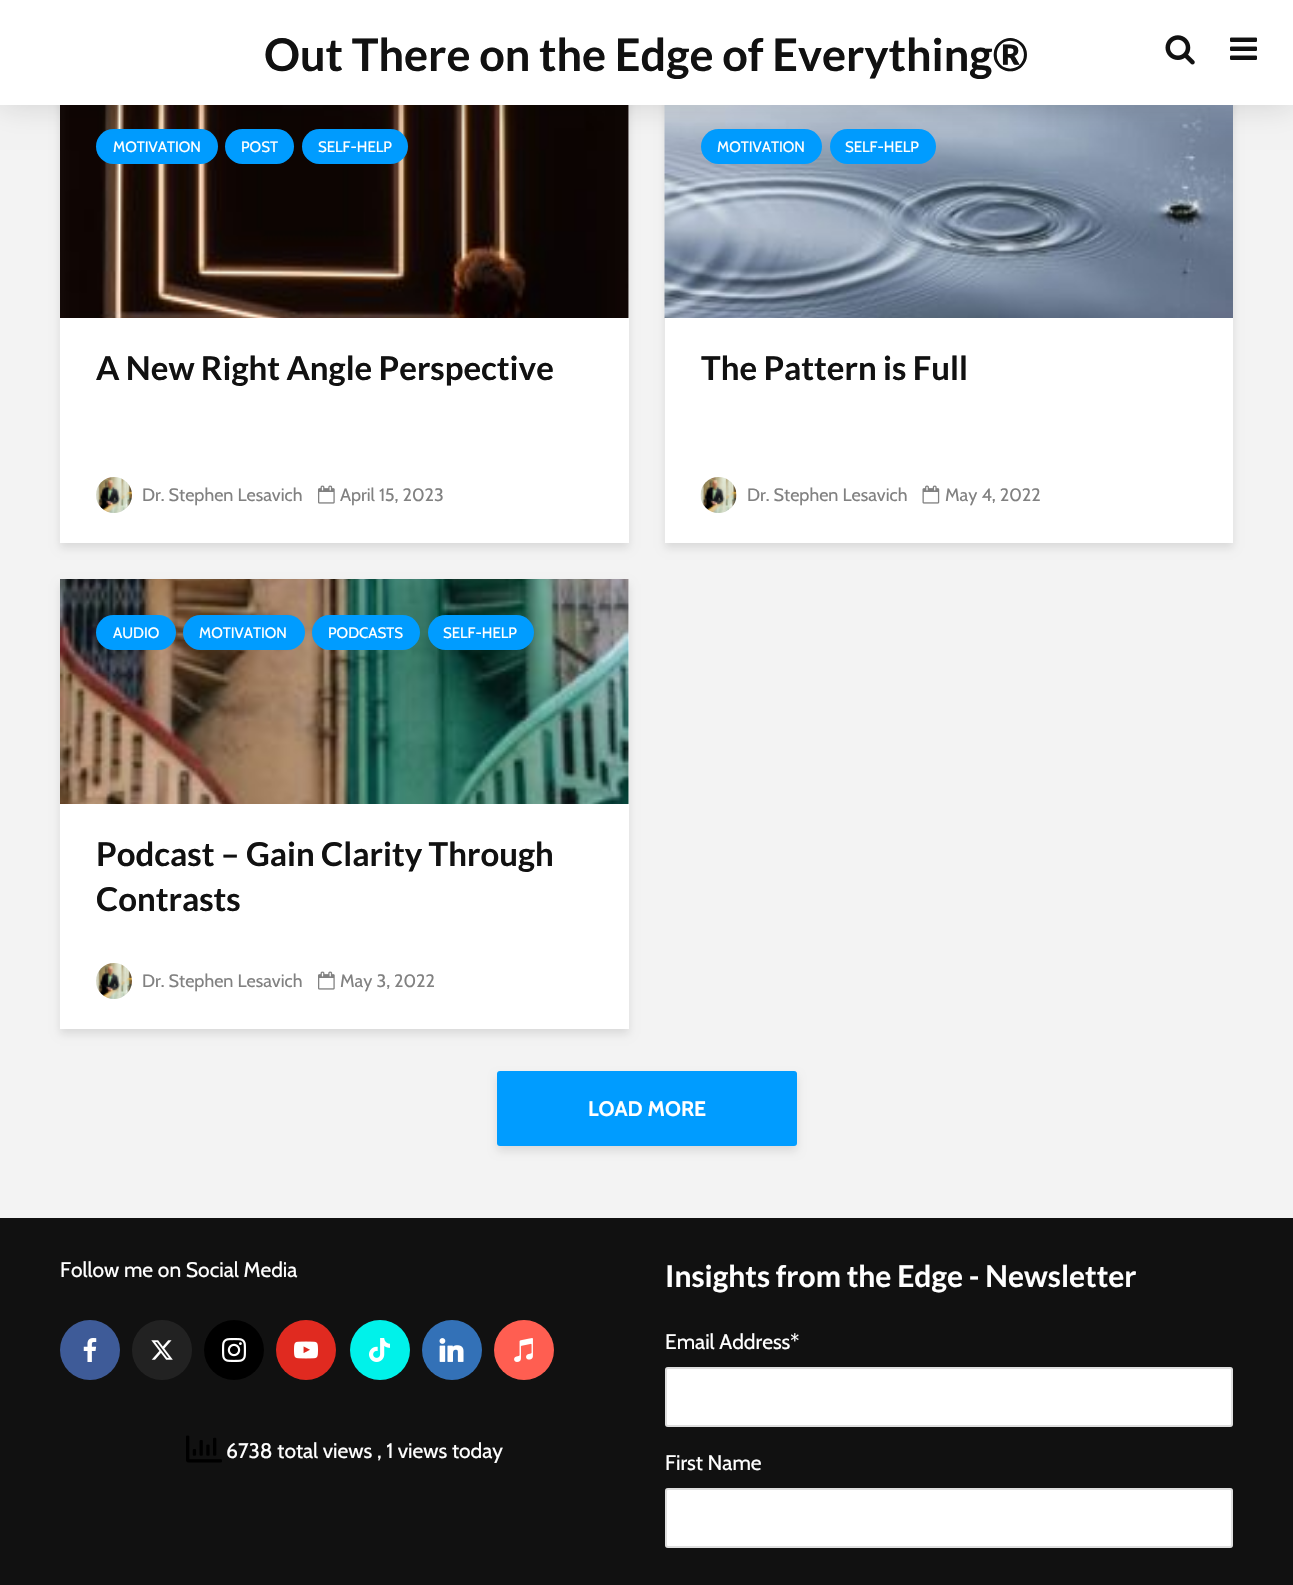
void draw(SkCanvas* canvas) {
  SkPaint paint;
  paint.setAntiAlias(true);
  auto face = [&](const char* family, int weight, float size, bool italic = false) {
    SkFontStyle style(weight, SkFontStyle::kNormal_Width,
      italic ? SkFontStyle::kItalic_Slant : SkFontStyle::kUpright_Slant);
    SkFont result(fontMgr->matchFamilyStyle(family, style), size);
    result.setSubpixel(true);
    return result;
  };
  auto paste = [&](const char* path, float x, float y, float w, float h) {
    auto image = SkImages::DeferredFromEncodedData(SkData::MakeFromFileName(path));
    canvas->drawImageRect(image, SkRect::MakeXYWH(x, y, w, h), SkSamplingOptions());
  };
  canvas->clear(0xfff3f3f3);
  paint.setColor(0x1a000101);
  paint.setMaskFilter(SkMaskFilter::MakeBlur(kNormal_SkBlurStyle, 4));
  canvas->drawRect(SkRect::MakeXYWH(60, 98, 569, 450), paint);
  paint.setMaskFilter(nullptr);
  paint.setColor(0xffffffff);
  canvas->drawRect(SkRect::MakeXYWH(60, 105, 569, 438), paint);
  paste("img/3.png", 60, 105, 569, 213);
  paint.setColor(0xff009cff);
  canvas->drawRoundRect(SkRect::MakeXYWH(96, 129, 122, 35), 17.5f, 17.5f, paint);
  canvas->drawRoundRect(SkRect::MakeXYWH(225, 129, 69, 35), 17.5f, 17.5f, paint);
  canvas->drawRoundRect(SkRect::MakeXYWH(302, 129, 106, 35), 17.5f, 17.5f, paint);
  paint.setColor(0x1a000101);
  paint.setMaskFilter(SkMaskFilter::MakeBlur(kNormal_SkBlurStyle, 4));
  canvas->drawRect(SkRect::MakeXYWH(665, 98, 568, 450), paint);
  paint.setMaskFilter(nullptr);
  paste("img/6.png", 664, 105, 569, 213);
  paint.setColor(0xff009cff);
  canvas->drawRoundRect(SkRect::MakeXYWH(701, 129, 121, 35), 17.5f, 17.5f, paint);
  canvas->drawRoundRect(SkRect::MakeXYWH(830, 129, 106, 35), 17.5f, 17.5f, paint);
  paint.setColor(0x26000000);
  paint.setMaskFilter(SkMaskFilter::MakeBlur(kNormal_SkBlurStyle, 15));
  canvas->drawRect(SkRect::MakeXYWH(0, 0, 1293, 105), paint);
  paint.setMaskFilter(nullptr);
  paint.setColor(0xffffffff);
  canvas->drawRect(SkRect::MakeXYWH(0, 0, 1293, 105), paint);
  paste("img/1.png", 1165, 35, 30, 30);
  paste("img/2.png", 1230, 37, 27, 23);
  paste("img/4.png", 96, 477, 36, 36);
  paste("img/5.png", 318, 485, 17, 19);
  canvas->drawRect(SkRect::MakeXYWH(665, 318, 568, 225), paint);
  paste("img/7.png", 700, 477, 37, 36);
  paste("img/8.png", 922, 485, 18, 19);
  paint.setColor(0x1a000101);
  paint.setMaskFilter(SkMaskFilter::MakeBlur(kNormal_SkBlurStyle, 4));
  canvas->drawRect(SkRect::MakeXYWH(60, 584, 569, 450), paint);
  paint.setMaskFilter(nullptr);
  paint.setColor(0xffffffff);
  canvas->drawRect(SkRect::MakeXYWH(60, 579, 569, 450), paint);
  paste("img/9.png", 60, 579, 569, 225);
  paint.setColor(0xff009cff);
  canvas->drawRoundRect(SkRect::MakeXYWH(96, 615, 80, 35), 17.5f, 17.5f, paint);
  canvas->drawRoundRect(SkRect::MakeXYWH(183, 615, 122, 35), 17.5f, 17.5f, paint);
  canvas->drawRoundRect(SkRect::MakeXYWH(312, 615, 108, 35), 17.5f, 17.5f, paint);
  canvas->drawRoundRect(SkRect::MakeXYWH(428, 615, 106, 35), 17.5f, 17.5f, paint);
  paste("img/4.png", 96, 963, 36, 36);
  paste("img/5.png", 318, 971, 17, 19);
  paint.setColor(0x1a000000);
  paint.setMaskFilter(SkMaskFilter::MakeBlur(kNormal_SkBlurStyle, 4));
  canvas->drawRoundRect(SkRect::MakeXYWH(497, 1076, 300, 75), 3, 3, paint);
  paint.setMaskFilter(nullptr);
  paint.setColor(0xff009cff);
  canvas->drawRoundRect(SkRect::MakeXYWH(497, 1071, 300, 75), 3, 3, paint);
  paint.setColor(0xff111111);
  canvas->drawRect(SkRect::MakeXYWH(0, 1218, 1293, 367), paint);
  paint.setColor(0xff3e5b98);
  canvas->drawCircle(90, 1350, 30, paint);
  paste("img/10.png", 83, 1338, 14, 24);
  paint.setColor(0xff222222);
  canvas->drawCircle(162, 1350, 30, paint);
  paste("img/11.png", 151, 1340, 22, 20);
  paint.setColor(0xff000000);
  canvas->drawCircle(234, 1350, 30, paint);
  paste("img/12.png", 222, 1338, 24, 24);
  paint.setColor(0xffe02a20);
  canvas->drawCircle(306, 1350, 30, paint);
  paste("img/13.png", 294, 1341, 24, 18);
  paint.setColor(0xff00f2ea);
  canvas->drawCircle(380, 1350, 30, paint);
  paste("img/14.png", 369, 1338, 21, 24);
  paint.setColor(0xff3371b7);
  canvas->drawCircle(452, 1350, 30, paint);
  paste("img/15.png", 439, 1338, 25, 24);
  paint.setColor(0xffff5e51);
  canvas->drawCircle(524, 1350, 30, paint);
  paste("img/16.png", 514, 1338, 19, 24);
  paste("img/17.png", 186, 1435, 36, 28);
  paint.setColor(0xffffffff);
  canvas->drawRoundRect(SkRect::MakeXYWH(665, 1367, 568, 60), 3, 3, paint);
  paint.setStroke(true);
  paint.setStrokeWidth(2);
  paint.setColor(0x335e5e5e);
  canvas->drawRoundRect(SkRect::MakeXYWH(666, 1368, 566, 58), 2, 2, paint);
  paint.setStroke(false);
  paint.setColor(0xffffffff);
  canvas->drawRoundRect(SkRect::MakeXYWH(665, 1488, 568, 60), 3, 3, paint);
  paint.setStroke(true);
  paint.setColor(0x335e5e5e);
  canvas->drawRoundRect(SkRect::MakeXYWH(666, 1489, 566, 58), 2, 2, paint);
  auto f0 = face("Lato", 700, 45);
  paint.setStroke(false);
  paint.setColor(0xff111111);
  canvas->drawString("Out There on the Edge of Everything®", 264, 71, f0, paint);
  auto f1 = face("Cabin", 400, 15);
  paint.setColor(0xffffffff);
  {
    const struct { const char* s; float x, y; } items[] = {
      {"MOTIVATION", 113, 152},
      {"POST", 241, 152},
      {"SELF-HELP", 318, 152},
    };
    for (auto [s, x, y] : items) {
      canvas->drawString(s, x, y, f1, paint);
    }
  }
  auto f2 = face("Lato", 700, 33);
  paint.setColor(0xff111111);
  canvas->drawString("A New Right Angle Perspective", 96, 380, f2, paint);
  auto f3 = face("Cabin", 400, 18);
  paint.setColor(0xff818181);
  canvas->drawString("Dr. Stephen Lesavich", 142, 501, f3, paint);
  canvas->drawString("April 15, 2023", 340, 501, f3, paint);
  paint.setColor(0xffffffff);
  canvas->drawString("MOTIVATION", 717, 152, f1, paint);
  canvas->drawString("SELF-HELP", 845, 152, f1, paint);
  canvas->save();
  canvas->clipRect(SkRect::MakeXYWH(701, 345, 496, 128));
  paint.setColor(0xff111111);
  canvas->drawString("The Pattern is Full", 701, 380, f2, paint);
  canvas->restore();
  paint.setColor(0xff818181);
  canvas->drawString("Dr. Stephen Lesavich", 747, 501, f3, paint);
  canvas->drawString("May 4, 2022", 945, 501, f3, paint);
  paint.setColor(0xffffffff);
  {
    const struct { const char* s; float x, y; } items[] = {
      {"AUDIO", 113, 638},
      {"MOTIVATION", 199, 638},
      {"PODCASTS", 328, 638},
      {"SELF-HELP", 443, 638},
    };
    for (auto [s, x, y] : items) {
      canvas->drawString(s, x, y, f1, paint);
    }
  }
  paint.setColor(0xff111111);
  canvas->drawString("Podcast – Gain Clarity Through", 96, 866, f2, paint);
  canvas->drawString("Contrasts", 96, 911, f2, paint);
  paint.setColor(0xff818181);
  canvas->drawString("Dr. Stephen Lesavich", 142, 987, f3, paint);
  canvas->drawString("May 3, 2022", 340, 987, f3, paint);
  auto f4 = face("Cabin", 700, 21);
  paint.setColor(0xffffffff);
  canvas->drawString("LOAD MORE", 588, 1116, f4, paint);
  auto f5 = face("Cabin", 400, 21);
  canvas->drawString("Follow me on Social Media", 60, 1277, f5, paint);
  canvas->drawString("6738 total views , 1 views today", 226, 1458, f5, paint);
  auto f6 = face("Lato", 700, 30);
  canvas->drawString("Insights from the Edge - Newsletter", 665, 1287, f6, paint);
  canvas->drawString("Email Address*", 665, 1349, f5, paint);
  canvas->drawString("First Name", 665, 1470, f5, paint);
}
